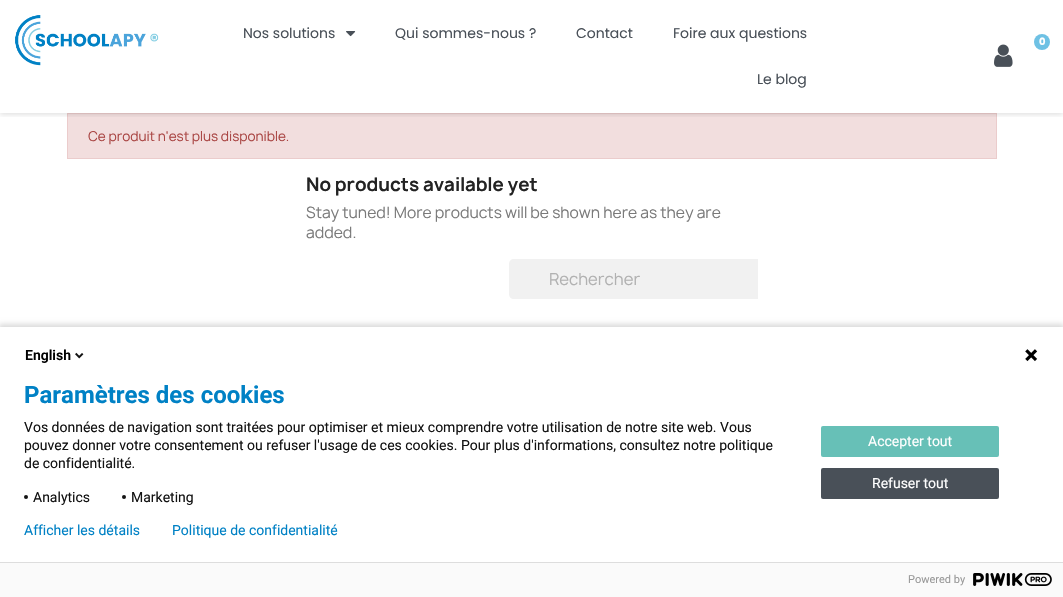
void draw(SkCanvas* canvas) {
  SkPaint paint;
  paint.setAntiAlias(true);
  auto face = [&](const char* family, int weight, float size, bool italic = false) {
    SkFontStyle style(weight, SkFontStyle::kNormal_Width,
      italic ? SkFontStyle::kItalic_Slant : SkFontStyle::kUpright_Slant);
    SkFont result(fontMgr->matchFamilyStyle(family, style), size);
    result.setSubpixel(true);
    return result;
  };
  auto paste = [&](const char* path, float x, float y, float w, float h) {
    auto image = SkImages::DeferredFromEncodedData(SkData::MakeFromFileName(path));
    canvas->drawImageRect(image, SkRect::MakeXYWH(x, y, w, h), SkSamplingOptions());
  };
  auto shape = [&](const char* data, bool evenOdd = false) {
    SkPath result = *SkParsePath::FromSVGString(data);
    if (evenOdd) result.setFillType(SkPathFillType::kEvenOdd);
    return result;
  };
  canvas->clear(0xffffffff);
  paint.setColor(0xfff2dede);
  canvas->drawRect(SkRect::MakeXYWH(67.5f, 113.5f, 929, 45), paint);
  paint.setStroke(true);
  paint.setStrokeWidth(1);
  paint.setColor(0xffebcccc);
  canvas->drawRect(SkRect::MakeXYWH(67.5f, 113.5f, 929, 45), paint);
  canvas->save();
  canvas->clipRect(SkRect::MakeXYWH(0, 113, 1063, 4));
  paint.setStroke(false);
  paint.setColor(0x1c000000);
  paint.setMaskFilter(SkMaskFilter::MakeBlur(kNormal_SkBlurStyle, 2.5f));
  canvas->drawRect(SkRect::MakeXYWH(0, 2, 1063, 113), paint);
  paint.setMaskFilter(nullptr);
  canvas->restore();
  paste("img/1.png", 15, 15, 144, 51);
  paste("img/2.png", 346, 31, 10, 6);
  paint.setColor(0xff6ec1e4);
  canvas->drawCircle(1042, 42, 8, paint);
  paste("img/3.png", 994, 44, 19, 23);
  paint.setColor(0xfff1f1f1);
  canvas->drawPath(shape("M514 259H758V299H514C511 299 509 297 509 294V264C509 261 511 259 514 259Z"), paint);
  paint.setColor(0x24000000);
  paint.setMaskFilter(SkMaskFilter::MakeBlur(kNormal_SkBlurStyle, 2.5f));
  canvas->drawRect(SkRect::MakeXYWH(-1, 324, 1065, 272), paint);
  paint.setMaskFilter(nullptr);
  paint.setColor(0xffffffff);
  canvas->drawRect(SkRect::MakeXYWH(0, 327, 1063, 235), paint);
  paste("img/4.png", 75, 352, 9, 7);
  paste("img/5.png", 1025, 349, 13, 13);
  paint.setColor(0xff131313);
  canvas->drawCircle(26, 497, 2, paint);
  canvas->drawCircle(124, 497, 2, paint);
  paint.setColor(0xff67c0b7);
  canvas->drawRoundRect(SkRect::MakeXYWH(821, 426, 178, 31), 2, 2, paint);
  paint.setColor(0xff495058);
  canvas->drawRoundRect(SkRect::MakeXYWH(821, 468, 178, 31), 2, 2, paint);
  paint.setColor(0xfffafafa);
  canvas->drawRect(SkRect::MakeXYWH(0, 563, 1063, 34), paint);
  paint.setColor(0xffdddddd);
  canvas->drawRect(SkRect::MakeXYWH(0, 562, 1063, 1), paint);
  paste("img/6.png", 973, 573, 79, 13);
  auto f0 = face("Poppins", 400, 14);
  paint.setColor(0xff495058);
  {
    const struct { const char* s; float x, y; } items[] = {
      {"Nos solutions", 243, 38},
      {"Qui sommes-nous ?", 395, 38},
      {"Contact", 576, 38},
      {"Foire aux questions", 673, 38},
      {"Le blog", 757, 84},
    };
    for (auto [s, x, y] : items) {
      canvas->drawString(s, x, y, f0, paint);
    }
  }
  auto f1 = face("Poppins", 700, 10);
  paint.setColor(0xffffffff);
  canvas->drawString("0", 1039, 45, f1, paint);
  auto f2 = face("Manrope", 400, 13);
  paint.setColor(0xffa94442);
  canvas->drawString("Ce produit n'est plus disponible.", 88, 141, f2, paint);
  auto f3 = face("Manrope", 700, 18);
  paint.setColor(0xff232323);
  canvas->drawString("No products available yet", 306, 191, f3, paint);
  auto f4 = face("Manrope", 400, 15);
  paint.setColor(0xff7a7a7a);
  canvas->drawString("Stay tuned! More products will be shown here as they are", 306, 218, f4, paint);
  canvas->drawString("added.", 306, 238, f4, paint);
  auto f5 = face("Manrope", 400, 16);
  paint.setColor(0xffb1b1b1);
  canvas->drawString("Rechercher", 549, 285, f5, paint);
  auto f6 = face("Roboto", 600, 14);
  paint.setColor(0xff000000);
  canvas->drawString("English", 25, 360, f6, paint);
  auto f7 = face("Roboto", 700, 24);
  paint.setColor(0xff0081c5);
  canvas->drawString("Paramètres des cookies", 24, 403, f7, paint);
  auto f8 = face("Roboto", 400, 14);
  paint.setColor(0xff131313);
  {
    const struct { const char* s; float x, y; } items[] = {
      {"Vos données de navigation sont traitées pour optimiser et mieux comprendre votre utilisation de notre site web. Vous", 24, 432},
      {"pouvez donner votre consentement ou refuser l'usage de ces cookies. Pour plus d'informations, consultez notre politique", 24, 450},
      {"de confidentialité.", 24, 468},
      {"Analytics", 33, 502},
      {"Marketing", 131, 502},
    };
    for (auto [s, x, y] : items) {
      canvas->drawString(s, x, y, f8, paint);
    }
  }
  paint.setColor(0xffffffff);
  canvas->drawString("Accepter tout", 868, 446, f8, paint);
  canvas->drawString("Refuser tout", 872, 488, f8, paint);
  paint.setColor(0xff0081c5);
  canvas->drawString("Afficher les détails", 24, 535, f8, paint);
  canvas->drawString("Politique de confidentialité", 172, 535, f8, paint);
  auto f9 = face("Roboto", 400, 11);
  paint.setColor(0xff999999);
  canvas->drawString("Powered by", 908, 583, f9, paint);
}
